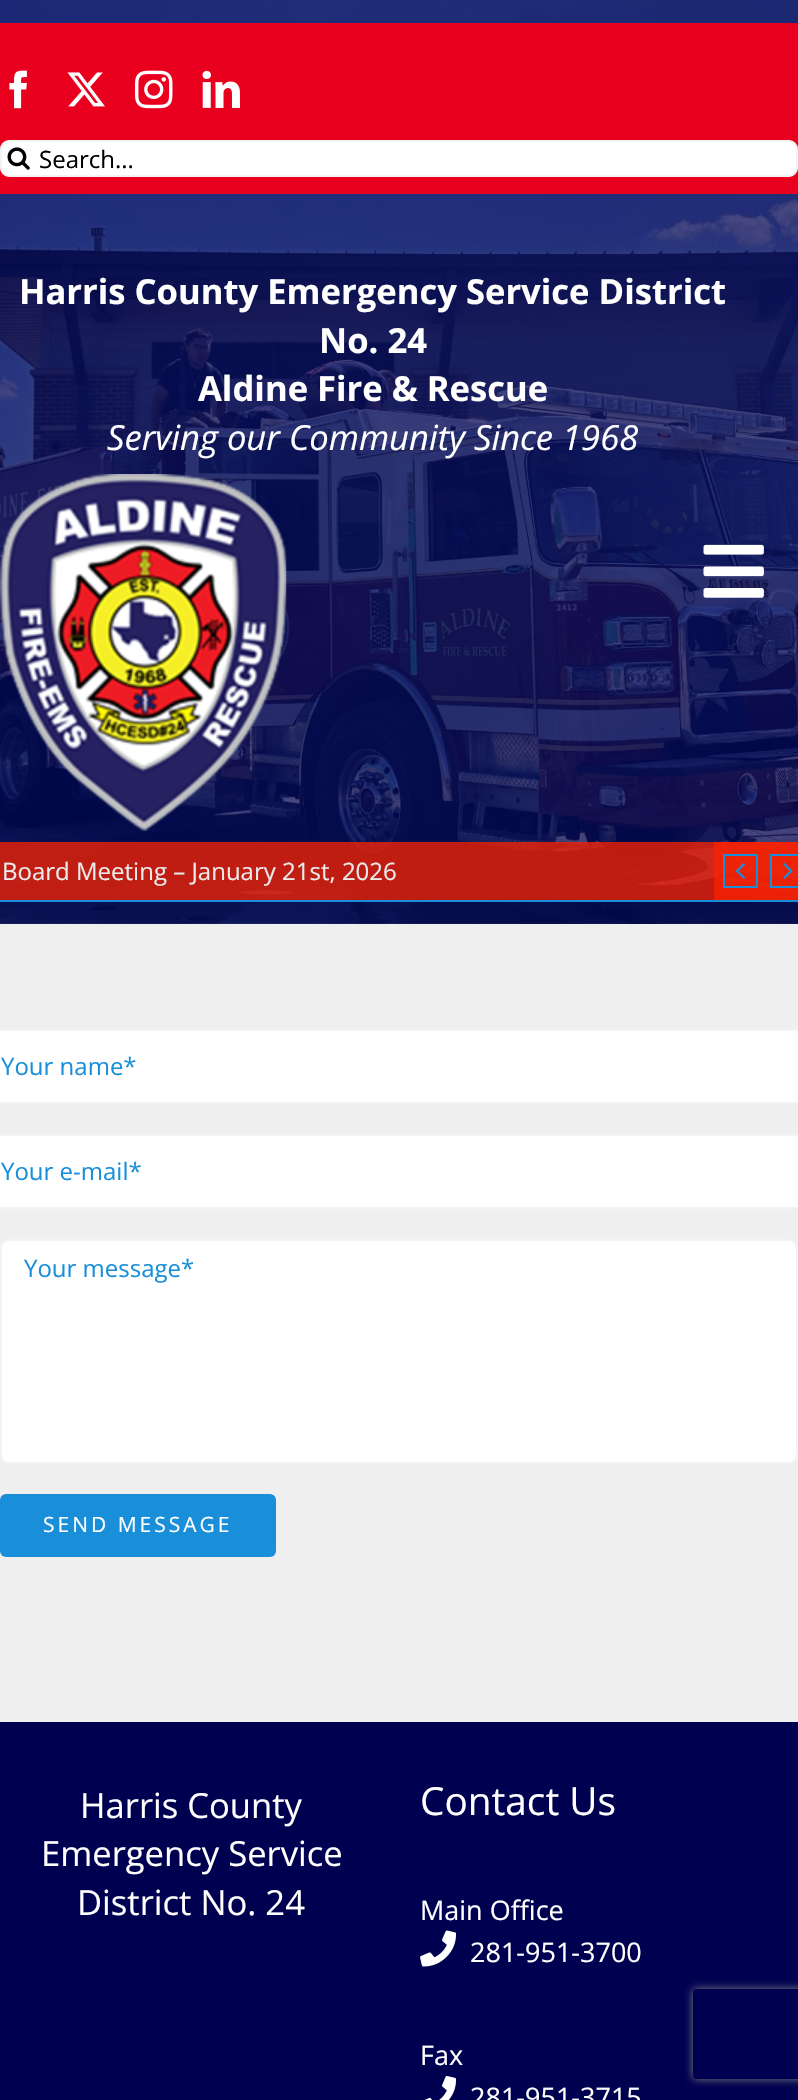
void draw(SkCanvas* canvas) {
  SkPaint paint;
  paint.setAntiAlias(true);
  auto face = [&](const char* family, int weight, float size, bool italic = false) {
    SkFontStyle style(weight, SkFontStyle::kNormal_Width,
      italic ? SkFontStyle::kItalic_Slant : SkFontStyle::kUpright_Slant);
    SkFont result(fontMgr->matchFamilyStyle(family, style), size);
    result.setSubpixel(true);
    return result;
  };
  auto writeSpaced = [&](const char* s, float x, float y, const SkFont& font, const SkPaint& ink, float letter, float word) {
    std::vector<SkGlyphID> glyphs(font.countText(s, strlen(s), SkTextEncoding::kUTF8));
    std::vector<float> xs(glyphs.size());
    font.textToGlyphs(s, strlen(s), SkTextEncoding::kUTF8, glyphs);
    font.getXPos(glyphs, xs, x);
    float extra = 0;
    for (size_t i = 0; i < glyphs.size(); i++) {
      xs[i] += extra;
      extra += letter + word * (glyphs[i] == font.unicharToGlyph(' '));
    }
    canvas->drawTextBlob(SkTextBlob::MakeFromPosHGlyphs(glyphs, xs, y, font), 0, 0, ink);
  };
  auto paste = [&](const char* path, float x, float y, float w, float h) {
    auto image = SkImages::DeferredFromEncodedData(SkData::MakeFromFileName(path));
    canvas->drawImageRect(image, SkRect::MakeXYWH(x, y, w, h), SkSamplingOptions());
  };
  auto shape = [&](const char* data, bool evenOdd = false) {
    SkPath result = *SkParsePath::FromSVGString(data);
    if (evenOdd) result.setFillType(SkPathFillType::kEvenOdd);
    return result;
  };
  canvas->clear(0xffefefef);
  paste("img/1.png", 0, 0, 798, 924);
  paint.setColor(0xffea001f);
  canvas->drawRect(SkRect::MakeXYWH(0, 23, 798, 171), paint);
  paste("img/2.png", 9, 70, 18, 39);
  paste("img/3.png", 67, 72, 38, 35);
  paste("img/4.png", 135, 70, 38, 39);
  paste("img/5.png", 202, 70, 38, 38);
  paint.setColor(0xffffffff);
  canvas->drawRoundRect(SkRect::MakeXYWH(1, 141, 796, 35), 8, 8, paint);
  paint.setStroke(true);
  paint.setStrokeWidth(2);
  paint.setColor(0xfff2f3f5);
  canvas->drawRoundRect(SkRect::MakeXYWH(1, 141, 796, 35), 8, 8, paint);
  paste("img/6.png", 7, 147, 23, 23);
  paste("img/7.png", 0, 474, 287, 357);
  paste("img/8.png", 703, 544, 61, 54);
  paint.setStroke(false);
  paint.setColor(0xc4f72000);
  canvas->drawRect(SkRect::MakeXYWH(0, 842, 798, 58), paint);
  canvas->drawRect(SkRect::MakeXYWH(714, 842, 84, 58), paint);
  paint.setStroke(true);
  paint.setColor(0xff198fd9);
  canvas->drawRect(SkRect::MakeXYWH(724, 855, 33, 32), paint);
  paste("img/9.png", 735, 863, 10, 16);
  canvas->drawRect(SkRect::MakeXYWH(771, 855, 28, 32), paint);
  paste("img/10.png", 783, 863, 10, 16);
  paint.setStroke(false);
  canvas->drawRect(SkRect::MakeXYWH(0, 900, 798, 2), paint);
  paint.setColor(0xffffffff);
  canvas->drawRect(SkRect::MakeXYWH(0, 1031, 798, 71), paint);
  paint.setColor(0xfff2f3f5);
  canvas->drawPath(shape("M798 1104H0V1102H798ZM798 1029H0V1031H798Z", true), paint);
  paint.setColor(0xffffffff);
  canvas->drawRect(SkRect::MakeXYWH(0, 1136, 798, 71), paint);
  paint.setColor(0xfff2f3f5);
  canvas->drawPath(shape("M798 1209H0V1207H798ZM798 1134H0V1136H798Z", true), paint);
  paint.setColor(0xffffffff);
  canvas->drawRoundRect(SkRect::MakeXYWH(1, 1240, 796, 223), 8, 8, paint);
  paint.setStroke(true);
  paint.setColor(0xfff2f3f5);
  canvas->drawRoundRect(SkRect::MakeXYWH(1, 1240, 796, 223), 8, 8, paint);
  paint.setStroke(false);
  paint.setColor(0xff198fd9);
  canvas->drawRoundRect(SkRect::MakeXYWH(0, 1494, 276, 63), 6, 6, paint);
  paint.setColor(0xff000050);
  canvas->drawRect(SkRect::MakeXYWH(0, 1722, 798, 378), paint);
  paste("img/11.png", 420, 1930, 37, 37);
  paste("img/12.png", 424, 2076, 33, 24);
  canvas->save();
  canvas->clipPath(shape("M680 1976H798V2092H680ZM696 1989H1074C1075.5 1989 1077 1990.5 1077 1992V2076C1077 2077.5 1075.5 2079 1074 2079H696C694.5 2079 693 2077.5 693 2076V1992C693 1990.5 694.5 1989 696 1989Z", true), true);
  paint.setColor(0xff808080);
  paint.setMaskFilter(SkMaskFilter::MakeBlur(kNormal_SkBlurStyle, 4));
  canvas->drawRoundRect(SkRect::MakeXYWH(693, 1989, 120, 90), 3, 3, paint);
  paint.setMaskFilter(nullptr);
  canvas->restore();
  auto f0 = face("Open Sans", 400, 24);
  paint.setColor(0xff000000);
  canvas->drawString("Search...", 39, 168, f0, paint);
  auto f1 = face("Open Sans", 700, 34.6f);
  paint.setColor(0xffffffff);
  {
    const struct { const char* s; float x, y; } items[] = {
      {"Harris County Emergency Service District", 19, 304},
      {"No. 24", 319, 353},
      {"Aldine Fire & Rescue", 198, 401},
    };
    for (auto [s, x, y] : items) {
      canvas->drawString(s, x, y, f1, paint);
    }
  }
  auto f2 = face("Open Sans", 400, 34.6f, true);
  canvas->drawString("Serving our Community Since 1968", 107, 450, f2, paint);
  paint.setColor(0xffeaeaea);
  canvas->drawString("Board Meeting – January 21st, 2026", 2, 880, f0, paint);
  paint.setColor(0xff198fd9);
  {
    const struct { const char* s; float x, y; } items[] = {
      {"Your name*", 1, 1075},
      {"Your e-mail*", 1, 1180},
      {"Your message*", 24, 1277},
    };
    for (auto [s, x, y] : items) {
      canvas->drawString(s, x, y, f0, paint);
    }
  }
  auto f3 = face("Open Sans", 400, 21);
  paint.setColor(0xffffffff);
  writeSpaced("SEND MESSAGE", 43, 1532, f3, paint, 3, 0);
  auto f4 = face("Open Sans", 400, 34.6f);
  {
    const struct { const char* s; float x, y; } items[] = {
      {"Harris County", 80, 1818},
      {"Emergency Service", 41, 1866},
      {"District No. 24", 77, 1915},
    };
    for (auto [s, x, y] : items) {
      canvas->drawString(s, x, y, f4, paint);
    }
  }
  auto f5 = face("Open Sans", 400, 38.75f);
  canvas->drawString("Contact Us", 420, 1815, f5, paint);
  auto f6 = face("Open Sans", 400, 27);
  {
    const struct { const char* s; float x, y; } items[] = {
      {"Main Office", 420, 1920},
      {"281-951-3700", 470, 1962},
      {"Fax", 420, 2065},
      {"281-951-3715", 470, 2107},
    };
    for (auto [s, x, y] : items) {
      canvas->drawString(s, x, y, f6, paint);
    }
  }
}
